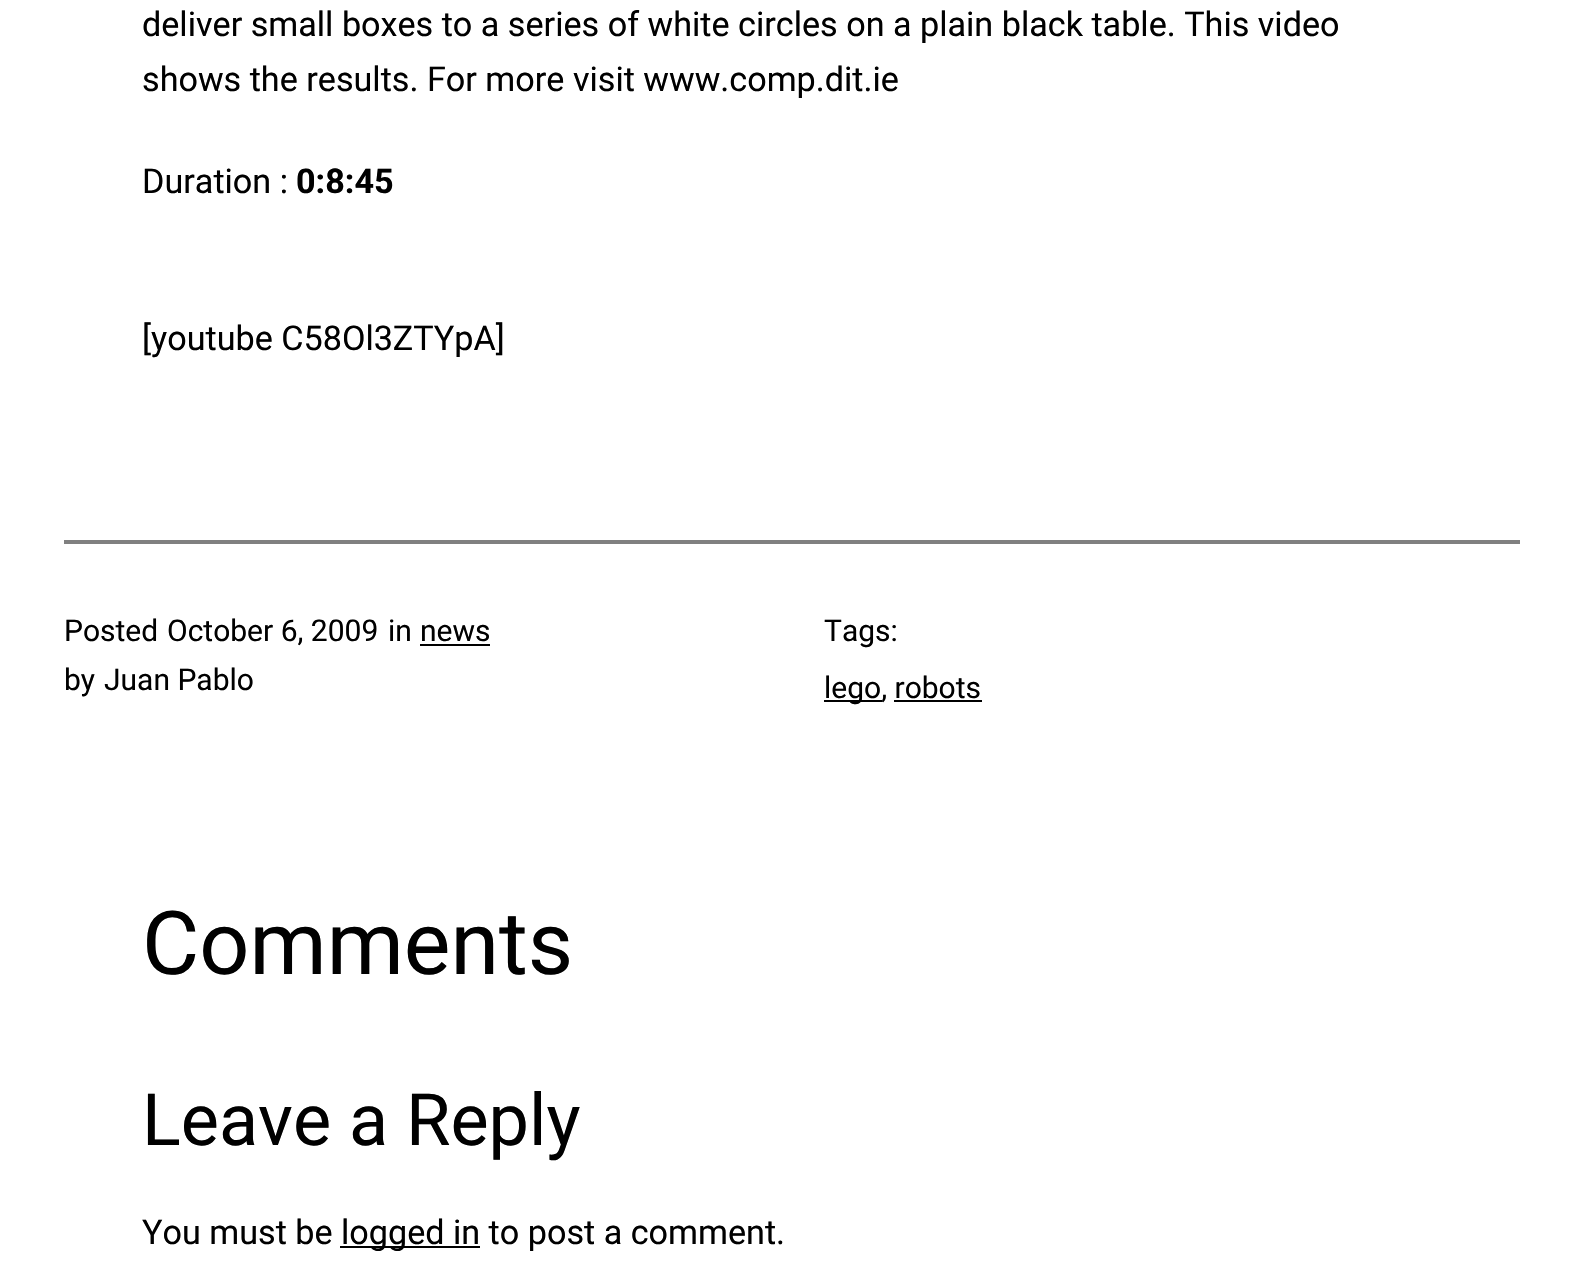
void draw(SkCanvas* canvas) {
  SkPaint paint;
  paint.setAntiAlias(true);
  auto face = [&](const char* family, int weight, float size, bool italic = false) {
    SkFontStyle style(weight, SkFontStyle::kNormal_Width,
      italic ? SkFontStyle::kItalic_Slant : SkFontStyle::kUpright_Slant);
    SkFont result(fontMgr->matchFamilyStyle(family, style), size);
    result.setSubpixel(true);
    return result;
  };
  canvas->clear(0xffffffff);
  {
    const struct { float x, y, w, h; SkColor color; } items[] = {
      {64, 540, 1456, 4, 0xff808080},
      {420, 644, 70, 2, 0xff000000},
      {824, 700, 58, 2, 0xff000000},
      {894, 700, 88, 2, 0xff000000},
      {340, 1246, 140, 2, 0xff000000},
    };
    for (auto [x, y, w, h, color] : items) {
      paint.setColor(color);
      canvas->drawRect(SkRect::MakeXYWH(x, y, w, h), paint);
    }
  }
  auto f0 = face("Roboto", 400, 34.15f);
  {
    const struct { const char* s; float x, y; } items[] = {
      {"deliver small boxes to a series of white circles on a plain black table. This video", 142, 36},
      {"shows the results. For more visit www.comp.dit.ie", 142, 91},
      {"Duration :", 142, 193},
    };
    for (auto [s, x, y] : items) {
      canvas->drawString(s, x, y, f0, paint);
    }
  }
  auto f1 = face("Roboto", 700, 34.15f);
  canvas->drawString("0:8:45", 296, 193, f1, paint);
  canvas->drawString("[youtube C58Ol3ZTYpA]", 142, 350, f0, paint);
  auto f2 = face("Roboto", 400, 30);
  {
    const struct { const char* s; float x, y; } items[] = {
      {"Posted", 64, 641},
      {"October 6, 2009", 167, 641},
      {"in", 388, 641},
      {"news", 420, 641},
      {"by", 64, 690},
      {"Juan Pablo", 104, 690},
      {"Tags:", 824, 641},
      {"lego, robots", 824, 698},
    };
    for (auto [s, x, y] : items) {
      canvas->drawString(s, x, y, f2, paint);
    }
  }
  auto f3 = face("Roboto", 400, 88);
  canvas->drawString("Comments", 142, 974, f3, paint);
  auto f4 = face("Roboto", 400, 72);
  canvas->drawString("Leave a Reply", 142, 1145, f4, paint);
  canvas->drawString("You must be", 142, 1244, f0, paint);
  canvas->drawString("logged in to post a comment.", 341, 1244, f0, paint);
}
